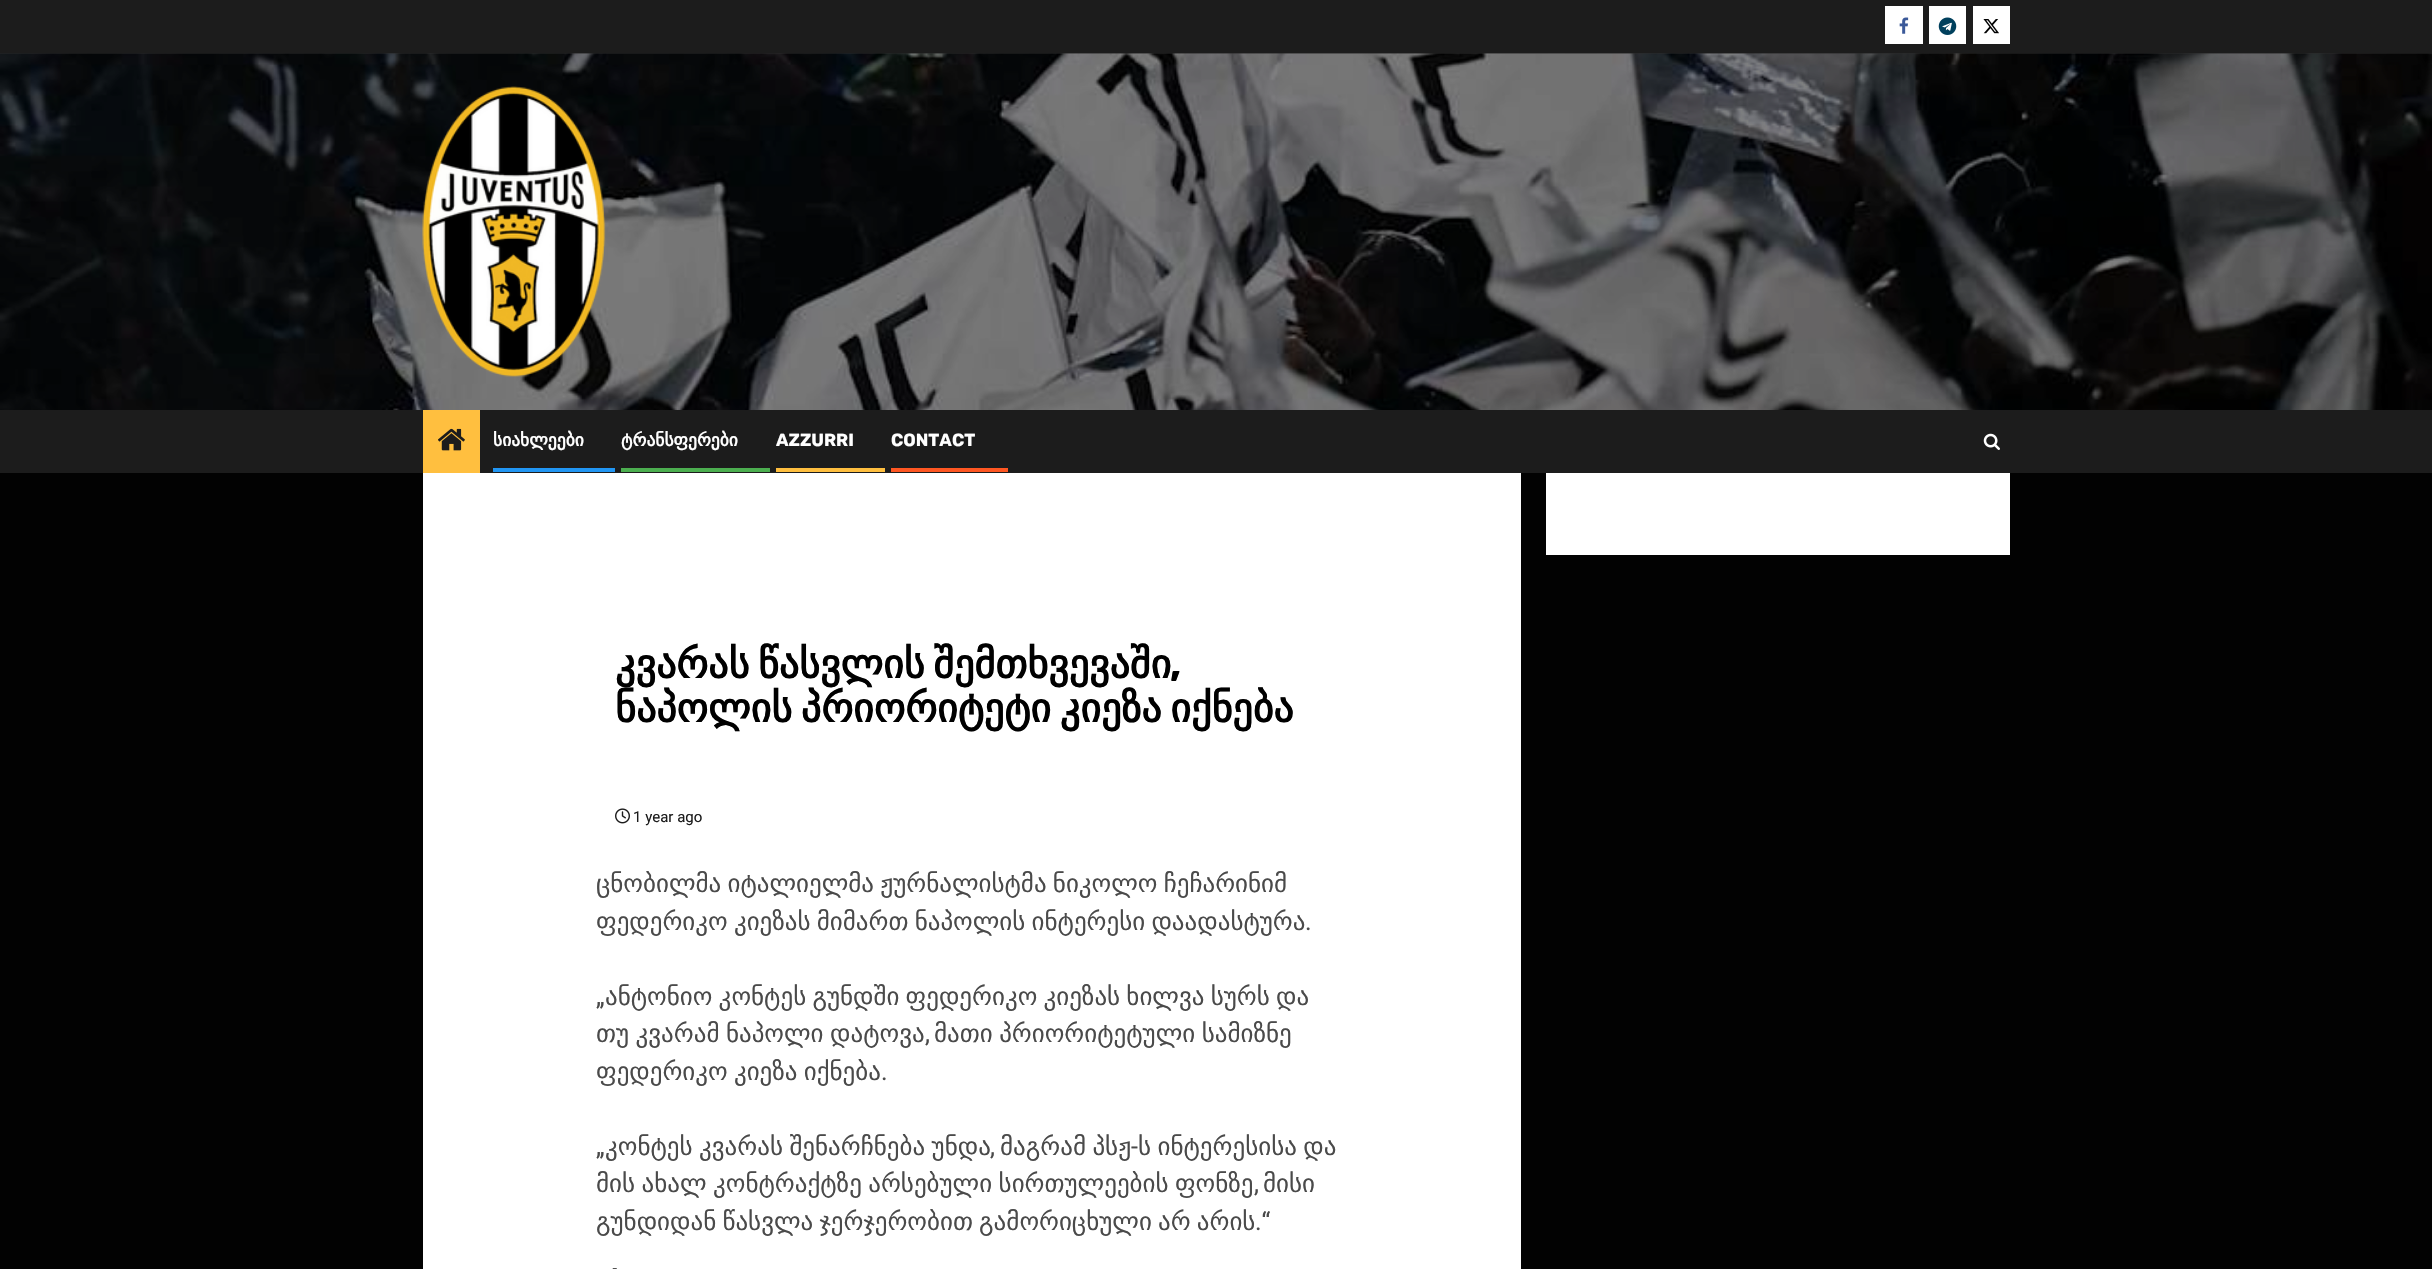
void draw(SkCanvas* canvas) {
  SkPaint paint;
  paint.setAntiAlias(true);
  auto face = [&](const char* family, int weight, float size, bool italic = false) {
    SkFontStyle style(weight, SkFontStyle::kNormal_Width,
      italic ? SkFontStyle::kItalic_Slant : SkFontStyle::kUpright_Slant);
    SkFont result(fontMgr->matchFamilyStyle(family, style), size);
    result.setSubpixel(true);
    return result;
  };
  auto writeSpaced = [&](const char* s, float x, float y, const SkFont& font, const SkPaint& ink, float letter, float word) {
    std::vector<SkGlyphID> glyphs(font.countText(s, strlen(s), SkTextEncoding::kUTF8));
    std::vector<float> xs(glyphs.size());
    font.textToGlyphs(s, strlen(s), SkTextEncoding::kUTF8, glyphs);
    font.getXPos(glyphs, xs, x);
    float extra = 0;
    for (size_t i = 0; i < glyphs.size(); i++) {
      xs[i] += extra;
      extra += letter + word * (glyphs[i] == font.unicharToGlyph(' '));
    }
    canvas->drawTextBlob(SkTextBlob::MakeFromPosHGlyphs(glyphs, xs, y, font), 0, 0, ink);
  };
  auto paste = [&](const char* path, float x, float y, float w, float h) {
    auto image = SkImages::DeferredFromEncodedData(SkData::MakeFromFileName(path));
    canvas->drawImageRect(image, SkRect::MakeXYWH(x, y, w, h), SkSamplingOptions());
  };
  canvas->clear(0xff020202);
  paint.setColor(0xff1c1c1c);
  canvas->drawRect(SkRect::MakeXYWH(0, 0, 2432, 54), paint);
  paint.setColor(0xffffffff);
  canvas->drawRect(SkRect::MakeXYWH(1885, 6, 38, 38), paint);
  paste("img/1.png", 1899, 17, 10, 17);
  canvas->drawRect(SkRect::MakeXYWH(1929, 6, 37, 38), paint);
  paste("img/2.png", 1938, 17, 19, 18);
  canvas->drawRect(SkRect::MakeXYWH(1973, 6, 37, 38), paint);
  paste("img/3.png", 1983, 19, 16, 15);
  paste("img/4.png", 0, 53, 2432, 357);
  paste("img/5.png", 422, 86, 184, 291);
  paint.setColor(0xff1c1c1c);
  canvas->drawRect(SkRect::MakeXYWH(0, 410, 2432, 63), paint);
  paint.setColor(0xffffbf3f);
  canvas->drawRect(SkRect::MakeXYWH(423, 410, 57, 63), paint);
  paste("img/6.png", 438, 428, 27, 23);
  {
    const struct { float x, y, w, h; SkColor color; } items[] = {
      {493, 468, 122, 4, 0xff2196f3},
      {621, 468, 149, 4, 0xff4caf50},
      {776, 468, 109, 4, 0xffffbf3f},
      {891, 468, 117, 4, 0xffff5722},
    };
    for (auto [x, y, w, h, color] : items) {
      paint.setColor(color);
      canvas->drawRect(SkRect::MakeXYWH(x, y, w, h), paint);
    }
  }
  paste("img/7.png", 1983, 433, 17, 17);
  paint.setColor(0xffffffff);
  canvas->drawRect(SkRect::MakeXYWH(1546, 473, 464, 82), paint);
  canvas->drawRect(SkRect::MakeXYWH(423, 473, 1098, 796), paint);
  paste("img/8.png", 615, 808, 15, 16);
  paste("img/9.png", 612, 1268, 5, 1);
  auto f0 = face("DejaVu Sans", 700, 17.5f);
  canvas->drawString("სიახლეები", 493, 446, f0, paint);
  canvas->drawString("ტრანსფერები", 621, 446, f0, paint);
  auto f1 = face("Rubik", 700, 17.5f);
  canvas->drawString("AZZURRI", 776, 446, f1, paint);
  canvas->drawString("CONTACT", 891, 446, f1, paint);
  auto f2 = face("DejaVu Sans", 700, 40);
  paint.setColor(0xff000000);
  writeSpaced("კვარას წასვლის შემთხვევაში", 615, 678, f2, paint, 0, -4);
  auto f3 = face("Rubik", 700, 40);
  canvas->drawString(",", 1170, 678, f3, paint);
  writeSpaced("ნაპოლის პრიორიტეტი კიეზა იქნება", 615, 722, f2, paint, 0, -4);
  auto f4 = face("Roboto", 400, 15);
  paint.setColor(0xff1c1c1c);
  canvas->drawString("1 year ago", 633, 822, f4, paint);
  auto f5 = face("DejaVu Sans", 400, 25);
  paint.setColor(0xff4a4a4a);
  writeSpaced("ცნობილმა იტალიელმა ჟურნალისტმა ნიკოლო ჩეჩარინიმ", 596, 892, f5, paint, 0, -1.75f);
  writeSpaced("ფედერიკო კიეზას მიმართ ნაპოლის ინტერესი დაადასტურა", 596, 930, f5, paint, 0, -1.75f);
  auto f6 = face("Roboto", 400, 25);
  canvas->drawString(".", 1305, 930, f6, paint);
  canvas->drawString("„", 596, 1005, f6, paint);
  writeSpaced("ანტონიო კონტეს გუნდში ფედერიკო კიეზას ხილვა სურს და", 605, 1005, f5, paint, 0, -1.75f);
  writeSpaced("თუ კვარამ ნაპოლი დატოვა", 596, 1042, f5, paint, 0, -1.5f);
  canvas->drawString(",", 925, 1042, f6, paint);
  writeSpaced("მათი პრიორიტეტული სამიზნე", 934, 1042, f5, paint, 0, -1.5f);
  writeSpaced("ფედერიკო კიეზა იქნება", 596, 1080, f5, paint, 0, -1.75f);
  canvas->drawString(".", 881, 1080, f6, paint);
  writeSpaced("კონტეს კვარას შენარჩნება უნდა", 605, 1155, f5, paint, 0, -1.5f);
  writeSpaced("მაგრამ პსჟ", 1000, 1155, f5, paint, 0, -1.5f);
  canvas->drawString("-", 1131, 1155, f6, paint);
  writeSpaced("ს ინტერესისა და", 1138, 1155, f5, paint, 0, -1.5f);
  canvas->drawString("„", 596, 1155, f6, paint);
  canvas->drawString(",", 990, 1155, f6, paint);
  writeSpaced("მის ახალ კონტრაქტზე არსებული სირთულეების ფონზე", 596, 1192, f5, paint, 0, -1.5f);
  canvas->drawString(",", 1254, 1192, f6, paint);
  canvas->drawString("მისი", 1263, 1192, f5, paint);
  writeSpaced("გუნდიდან წასვლა ჯერჯერობით გამორიცხული არ არის", 596, 1230, f5, paint, 0, -1.75f);
  canvas->drawString(".“", 1255, 1230, f6, paint);
}
